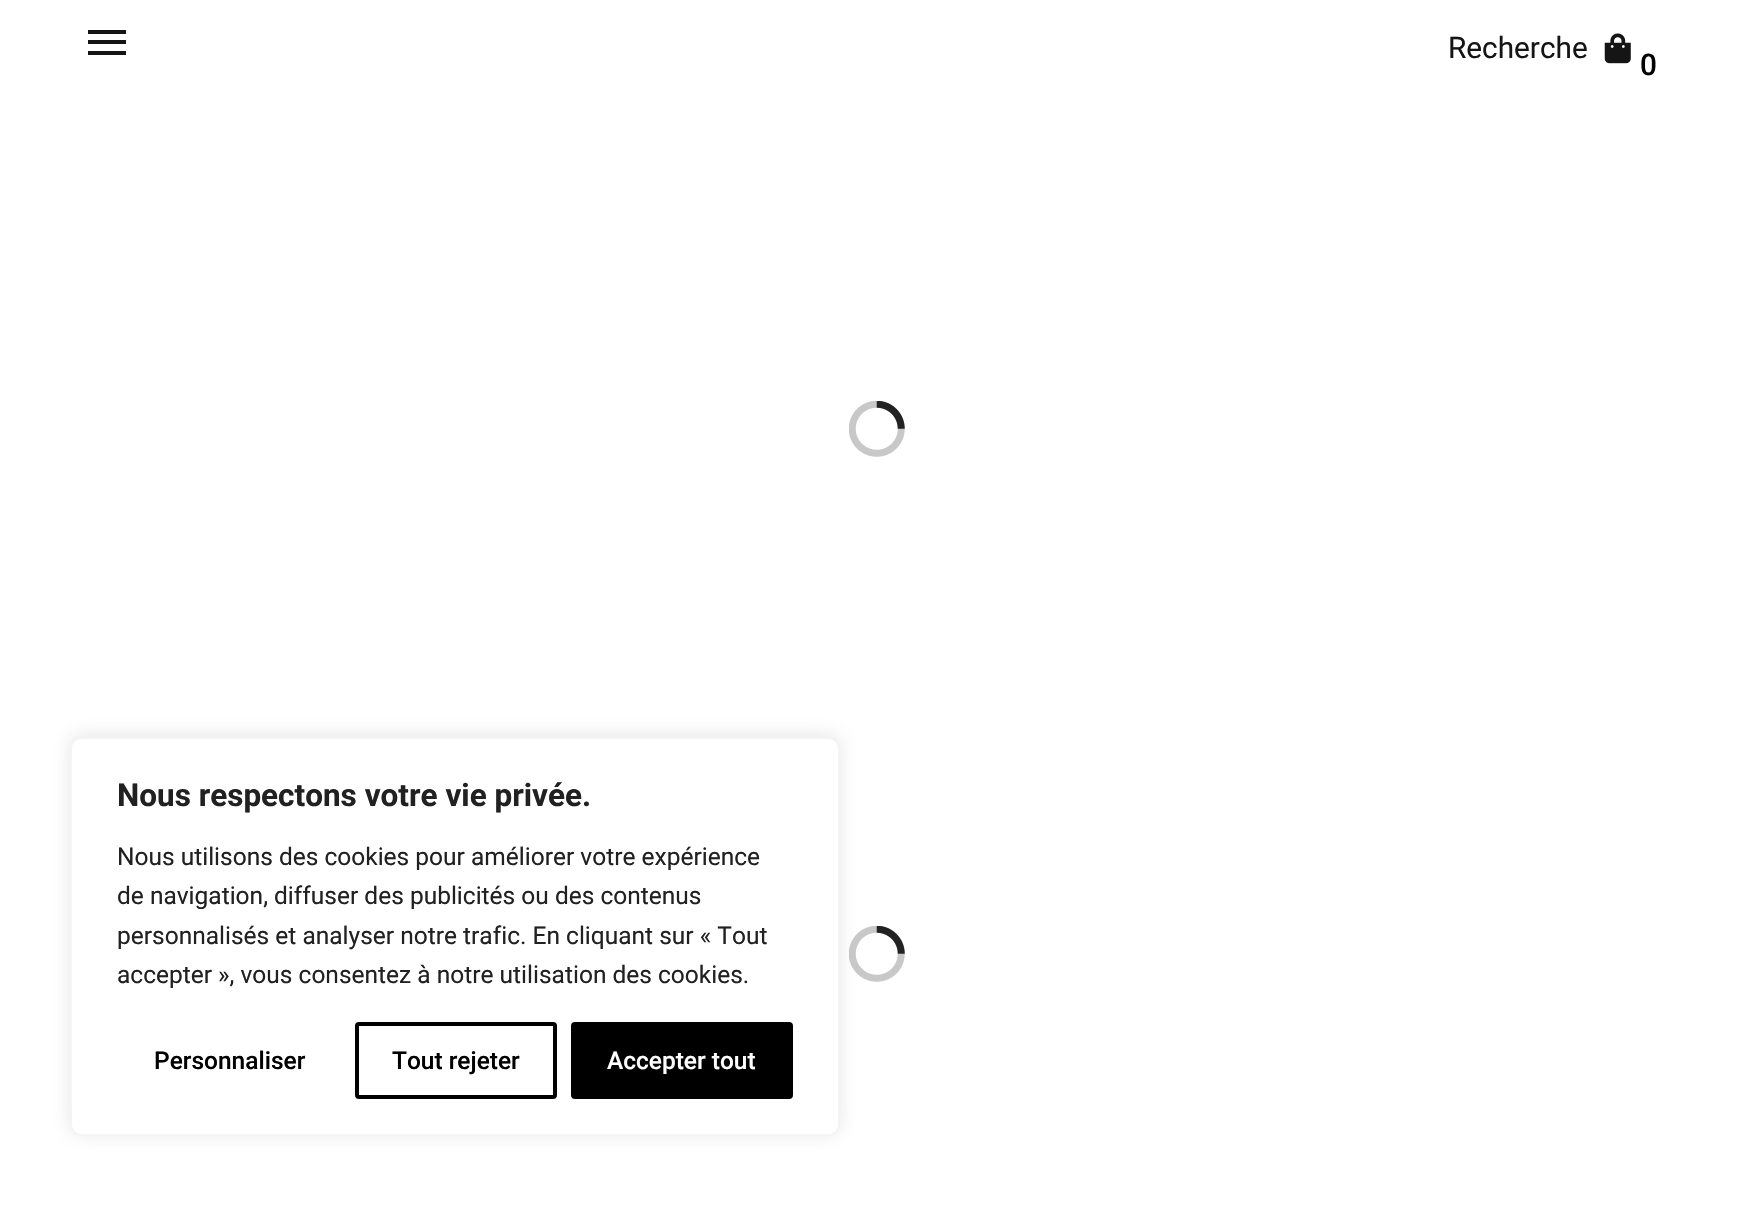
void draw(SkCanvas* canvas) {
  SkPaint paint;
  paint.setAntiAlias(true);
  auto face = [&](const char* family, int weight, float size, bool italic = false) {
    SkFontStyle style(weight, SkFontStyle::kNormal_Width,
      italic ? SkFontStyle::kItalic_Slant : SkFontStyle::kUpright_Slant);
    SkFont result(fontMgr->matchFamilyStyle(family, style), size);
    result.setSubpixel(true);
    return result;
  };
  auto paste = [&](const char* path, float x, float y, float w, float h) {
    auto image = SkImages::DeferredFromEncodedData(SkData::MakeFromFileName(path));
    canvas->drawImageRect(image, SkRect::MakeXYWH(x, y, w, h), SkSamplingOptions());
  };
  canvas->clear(0xffffffff);
  {
    const struct { float x, y, w, h; SkColor color; } items[] = {
      {88, 30, 38, 4, 0xff151515},
      {88, 40, 38, 4, 0xff151515},
      {88, 51, 38, 4, 0xff151515},
    };
    for (auto [x, y, w, h, color] : items) {
      paint.setColor(color);
      canvas->drawRect(SkRect::MakeXYWH(x, y, w, h), paint);
    }
  }
  paste("img/1.png", 1604, 33, 27, 31);
  paste("img/2.png", 849, 401, 56, 56);
  paste("img/2.png", 849, 926, 56, 56);
  paint.setColor(0x4dacabab);
  paint.setMaskFilter(SkMaskFilter::MakeBlur(kNormal_SkBlurStyle, 9));
  canvas->drawRoundRect(SkRect::MakeXYWH(70, 735, 770, 399), 11, 11, paint);
  paint.setMaskFilter(nullptr);
  paint.setColor(0xffffffff);
  canvas->drawRoundRect(SkRect::MakeXYWH(71, 738, 768, 397), 10, 10, paint);
  paint.setStroke(true);
  paint.setStrokeWidth(2);
  paint.setColor(0xfff4f4f4);
  canvas->drawRoundRect(SkRect::MakeXYWH(71, 738, 768, 397), 10, 10, paint);
  paint.setStrokeWidth(4);
  paint.setColor(0xff000000);
  canvas->drawRoundRect(SkRect::MakeXYWH(357, 1024, 198, 73), 2, 2, paint);
  paint.setStroke(false);
  canvas->drawRoundRect(SkRect::MakeXYWH(573, 1024, 218, 73), 2, 2, paint);
  paint.setStroke(true);
  canvas->drawRoundRect(SkRect::MakeXYWH(573, 1024, 218, 73), 2, 2, paint);
  auto f0 = face("Roboto", 400, 29.75f);
  paint.setStroke(false);
  paint.setColor(0xff151515);
  canvas->drawString("Recherche", 1448, 58, f0, paint);
  auto f1 = face("Roboto", 500, 29.75f);
  paint.setColor(0xff000000);
  canvas->drawString("0", 1640, 75, f1, paint);
  auto f2 = face("Roboto", 700, 31.5f);
  paint.setColor(0xff212121);
  canvas->drawString("Nous respectons votre vie privée.", 117, 806, f2, paint);
  auto f3 = face("Roboto", 400, 24.5f);
  {
    const struct { const char* s; float x, y; } items[] = {
      {"Nous utilisons des cookies pour améliorer votre expérience", 117, 865},
      {"de navigation, diffuser des publicités ou des contenus", 117, 904},
      {"personnalisés et analyser notre trafic. En cliquant sur « Tout", 117, 944},
      {"accepter », vous consentez à notre utilisation des cookies.", 117, 983},
    };
    for (auto [s, x, y] : items) {
      canvas->drawString(s, x, y, f3, paint);
    }
  }
  auto f4 = face("Roboto", 500, 24.5f);
  paint.setColor(0xff000000);
  canvas->drawString("Personnaliser", 154, 1069, f4, paint);
  canvas->drawString("Tout rejeter", 392, 1069, f4, paint);
  paint.setColor(0xffffffff);
  canvas->drawString("Accepter tout", 607, 1069, f4, paint);
}
